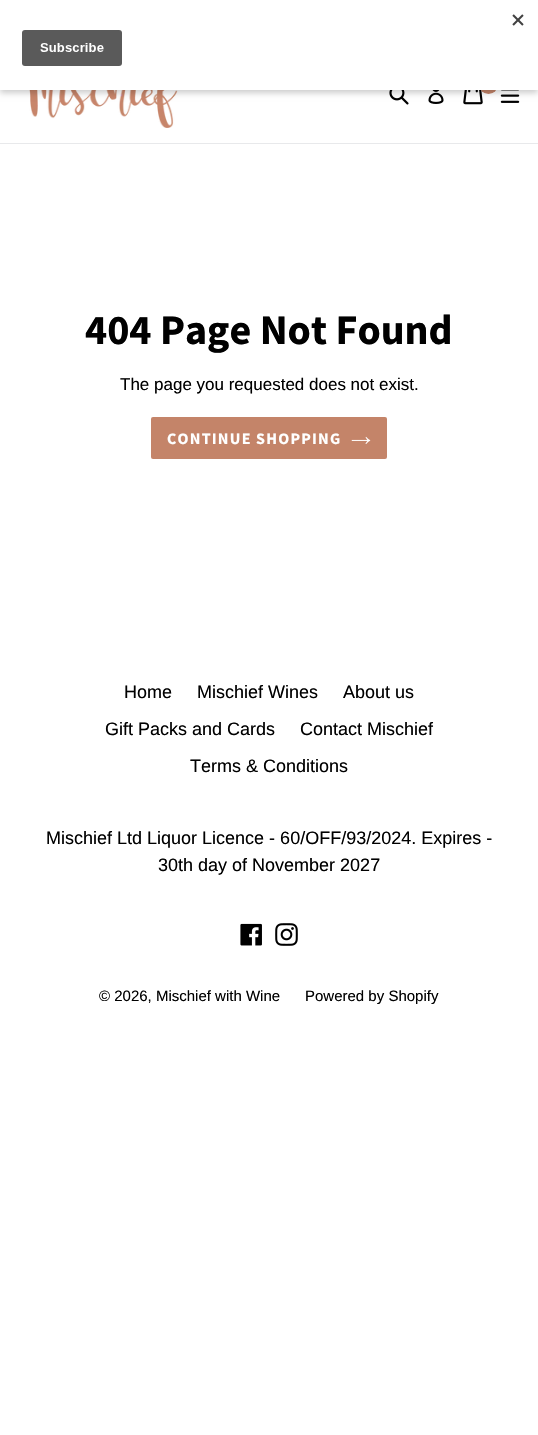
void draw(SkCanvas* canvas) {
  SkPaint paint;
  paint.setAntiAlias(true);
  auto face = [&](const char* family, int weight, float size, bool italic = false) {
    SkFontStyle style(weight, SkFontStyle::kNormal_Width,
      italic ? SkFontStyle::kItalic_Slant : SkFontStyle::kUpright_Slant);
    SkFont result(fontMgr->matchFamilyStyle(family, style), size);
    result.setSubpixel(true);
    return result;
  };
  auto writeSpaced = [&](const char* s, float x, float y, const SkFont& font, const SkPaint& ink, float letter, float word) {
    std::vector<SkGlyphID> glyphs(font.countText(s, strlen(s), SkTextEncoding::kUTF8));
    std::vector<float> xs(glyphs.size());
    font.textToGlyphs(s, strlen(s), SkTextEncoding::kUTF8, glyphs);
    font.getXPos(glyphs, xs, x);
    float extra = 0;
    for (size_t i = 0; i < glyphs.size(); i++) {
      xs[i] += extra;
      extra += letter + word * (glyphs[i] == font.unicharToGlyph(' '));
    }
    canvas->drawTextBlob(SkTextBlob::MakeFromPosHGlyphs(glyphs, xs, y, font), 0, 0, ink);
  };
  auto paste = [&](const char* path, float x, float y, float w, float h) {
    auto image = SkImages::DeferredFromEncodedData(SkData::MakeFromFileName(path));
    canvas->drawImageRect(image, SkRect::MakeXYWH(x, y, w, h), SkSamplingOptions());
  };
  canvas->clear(0xffffffff);
  paste("img/2.png", 29, 90, 149, 38);
  paste("img/3.png", 389, 90, 20, 15);
  paste("img/4.png", 428, 90, 16, 14);
  paste("img/5.png", 463, 90, 20, 15);
  paint.setColor(0xffc48469);
  canvas->drawCircle(488.5f, 84.5f, 9.5f, paint);
  paste("img/6.png", 500, 90, 20, 13);
  paint.setColor(0x33000000);
  paint.setMaskFilter(SkMaskFilter::MakeBlur(kNormal_SkBlurStyle, 3));
  canvas->drawRect(SkRect::MakeXYWH(0, 3, 538, 90), paint);
  paint.setMaskFilter(nullptr);
  paint.setColor(0xffffffff);
  canvas->drawRect(SkRect::MakeXYWH(0, 0, 538, 90), paint);
  paste("img/1.png", 22, 14, 502, 52);
  paint.setColor(0xffe8e9eb);
  canvas->drawRect(SkRect::MakeXYWH(0, 143, 538, 1), paint);
  paint.setColor(0xffc48469);
  canvas->drawRoundRect(SkRect::MakeXYWH(151, 417, 236, 42), 2, 2, paint);
  paste("img/7.png", 351, 436, 20, 8);
  paste("img/8.png", 240, 923, 22, 23);
  paste("img/9.png", 275, 923, 23, 23);
  auto f0 = face("Source Sans Pro", 700, 42);
  paint.setColor(0xff000000);
  canvas->drawString("404 Page Not Found", 85, 344, f0, paint);
  auto f1 = face("Liberation Sans", 400, 17);
  canvas->drawString("The page you requested does not exist.", 120, 390, f1, paint);
  auto f2 = face("Source Sans Pro", 700, 16);
  paint.setColor(0xffffffff);
  writeSpaced("CONTINUE SHOPPING", 167, 444, f2, paint, 1.25f, 0);
  auto f3 = face("Liberation Sans", 400, 18);
  paint.setColor(0xff000000);
  {
    const struct { const char* s; float x, y; } items[] = {
      {"Home", 124, 698},
      {"Mischief Wines", 197, 698},
      {"About us", 343, 698},
      {"Gift Packs and Cards", 105, 735},
      {"Contact Mischief", 300, 735},
      {"Terms & Conditions", 190, 772},
      {"Mischief Ltd Liquor Licence - 60/OFF/93/2024. Expires -", 46, 844},
      {"30th day of November 2027", 158, 871},
    };
    for (auto [s, x, y] : items) {
      canvas->drawString(s, x, y, f3, paint);
    }
  }
  auto f4 = face("Liberation Sans", 400, 15);
  canvas->drawString("© 2026, Mischief with Wine", 99, 1001, f4, paint);
  canvas->drawString("Powered by Shopify", 305, 1001, f4, paint);
}
